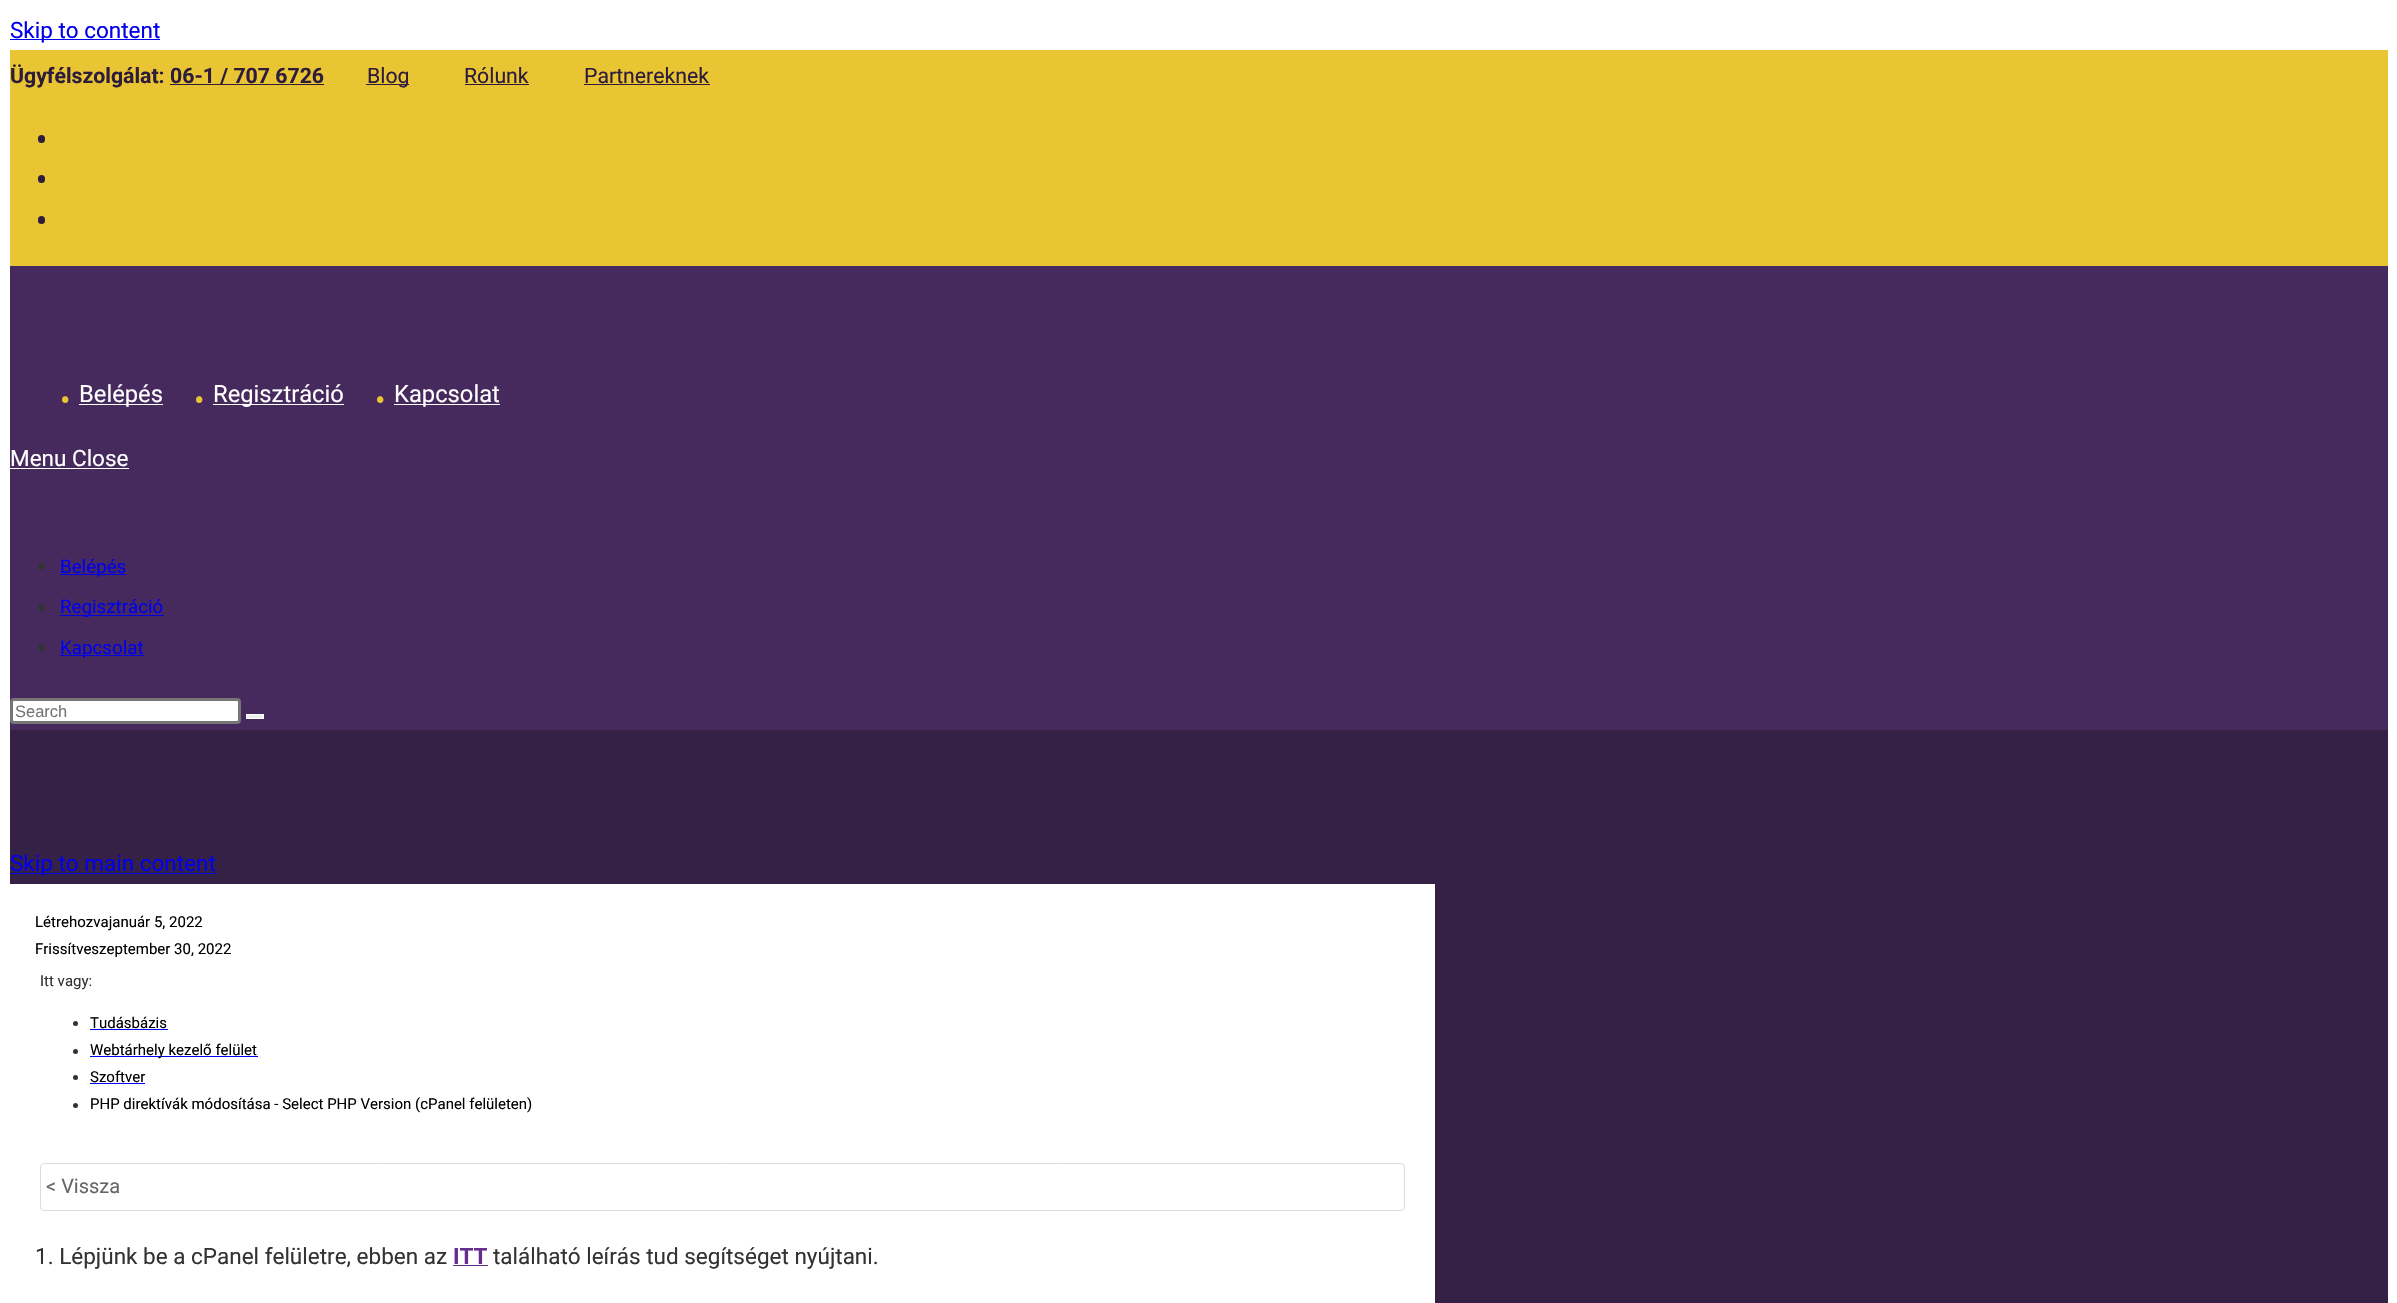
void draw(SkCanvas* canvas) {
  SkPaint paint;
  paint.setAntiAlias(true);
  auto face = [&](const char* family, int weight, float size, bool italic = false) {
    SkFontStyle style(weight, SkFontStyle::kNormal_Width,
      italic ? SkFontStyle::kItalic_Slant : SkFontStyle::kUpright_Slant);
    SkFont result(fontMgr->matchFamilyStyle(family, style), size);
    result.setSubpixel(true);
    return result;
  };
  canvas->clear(0xffffffff);
  {
    const struct { float x, y, w, h; SkColor color; } items[] = {
      {10, 39, 150, 1, 0xff0000ee},
      {10, 50, 2378, 216, 0xffeac533},
      {170, 84, 154, 1, 0xff2d1c3a},
      {366, 84, 43, 1, 0xff2d1c3a},
      {465, 84, 64, 1, 0xff2d1c3a},
      {584, 84, 126, 1, 0xff2d1c3a},
    };
    for (auto [x, y, w, h, color] : items) {
      paint.setColor(color);
      canvas->drawRect(SkRect::MakeXYWH(x, y, w, h), paint);
    }
  }
  canvas->drawRoundRect(SkRect::MakeXYWH(38, 135, 7, 8), 3.5f, 3.5f, paint);
  canvas->drawRoundRect(SkRect::MakeXYWH(38, 175, 7, 8), 3.5f, 3.5f, paint);
  canvas->drawRoundRect(SkRect::MakeXYWH(38, 216, 7, 8), 3.5f, 3.5f, paint);
  {
    const struct { float x, y, w, h; SkColor color; } items[] = {
      {10, 266, 2378, 464, 0xff46295d},
      {79, 404, 84, 1, 0xffffffff},
      {213, 404, 131, 1, 0xffffffff},
      {394, 404, 106, 1, 0xffffffff},
      {10, 468, 119, 1, 0xffffffff},
    };
    for (auto [x, y, w, h, color] : items) {
      paint.setColor(color);
      canvas->drawRect(SkRect::MakeXYWH(x, y, w, h), paint);
    }
  }
  paint.setColor(0xff333333);
  canvas->drawCircle(41.5f, 566.5f, 3.5f, paint);
  paint.setColor(0xff0000ee);
  canvas->drawRect(SkRect::MakeXYWH(60, 574, 66, 1), paint);
  paint.setColor(0xff333333);
  canvas->drawCircle(41.5f, 607.5f, 3.5f, paint);
  paint.setColor(0xff0000ee);
  canvas->drawRect(SkRect::MakeXYWH(60, 615, 104, 1), paint);
  paint.setColor(0xff333333);
  canvas->drawCircle(41.5f, 647.5f, 3.5f, paint);
  paint.setColor(0xff0000ee);
  canvas->drawRect(SkRect::MakeXYWH(60, 655, 84, 1), paint);
  paint.setColor(0xffffffff);
  canvas->drawRoundRect(SkRect::MakeXYWH(11.5f, 699.5f, 228, 23), 2.5f, 2.5f, paint);
  paint.setStroke(true);
  paint.setStrokeWidth(3);
  paint.setColor(0xff767676);
  canvas->drawRoundRect(SkRect::MakeXYWH(11.5f, 699.5f, 228, 23), 2.5f, 2.5f, paint);
  paint.setStroke(false);
  paint.setColor(0xffefefef);
  canvas->drawRect(SkRect::MakeXYWH(246.5f, 714.5f, 17, 4), paint);
  paint.setStroke(true);
  paint.setStrokeWidth(1);
  paint.setColor(0xffffffff);
  canvas->drawRect(SkRect::MakeXYWH(246.5f, 714.5f, 17, 4), paint);
  paint.setStroke(false);
  {
    const struct { float x, y, w, h; SkColor color; } items[] = {
      {10, 730, 2378, 573, 0xff352145},
      {10, 873, 206, 1, 0xff0000ee},
      {10, 884, 1425, 419, 0xffffffff},
    };
    for (auto [x, y, w, h, color] : items) {
      paint.setColor(color);
      canvas->drawRect(SkRect::MakeXYWH(x, y, w, h), paint);
    }
  }
  paint.setColor(0xff333333);
  canvas->drawCircle(75.5f, 1023.5f, 2.5f, paint);
  paint.setColor(0xff0000ee);
  canvas->drawRect(SkRect::MakeXYWH(90, 1029, 78, 1), paint);
  paint.setColor(0xff333333);
  canvas->drawCircle(75.5f, 1051.5f, 2.5f, paint);
  paint.setColor(0xff0000ee);
  canvas->drawRect(SkRect::MakeXYWH(90, 1056, 168, 1), paint);
  paint.setColor(0xff333333);
  canvas->drawCircle(75.5f, 1077.5f, 2.5f, paint);
  paint.setColor(0xff0000ee);
  canvas->drawRect(SkRect::MakeXYWH(90, 1083, 55, 1), paint);
  paint.setColor(0xff333333);
  canvas->drawCircle(75.5f, 1105.5f, 2.5f, paint);
  paint.setStroke(true);
  paint.setColor(0xffdcdcdc);
  canvas->drawRoundRect(SkRect::MakeXYWH(40.5f, 1163.5f, 1364, 47), 3.5f, 3.5f, paint);
  paint.setStroke(false);
  paint.setColor(0xff662d8c);
  canvas->drawRect(SkRect::MakeXYWH(453, 1265, 35, 1), paint);
  auto f0 = face("Roboto", 400, 22.5f);
  paint.setColor(0xff0000ee);
  canvas->drawString("Skip to content", 10, 38, f0, paint);
  auto f1 = face("Roboto", 700, 21.25f);
  paint.setColor(0xff2d1c3a);
  canvas->drawString("Ügyfélszolgálat:", 10, 83, f1, paint);
  canvas->drawString("06-1 / 707 6726", 170, 83, f1, paint);
  auto f2 = face("Roboto", 400, 21.25f);
  {
    const struct { const char* s; float x, y; } items[] = {
      {"Blog", 367, 83},
      {"Rólunk", 464, 83},
      {"Partnereknek", 584, 83},
    };
    for (auto [s, x, y] : items) {
      canvas->drawString(s, x, y, f2, paint);
    }
  }
  auto f3 = face("Roboto", 400, 31);
  paint.setColor(0xffeac533);
  canvas->drawString("•", 60, 411, f3, paint);
  auto f4 = face("Roboto", 400, 23.75f);
  paint.setColor(0xffffffff);
  canvas->drawString("Belépés", 79, 402, f4, paint);
  paint.setColor(0xffeac533);
  canvas->drawString("•", 194, 411, f3, paint);
  paint.setColor(0xffffffff);
  canvas->drawString("Regisztráció", 213, 402, f4, paint);
  paint.setColor(0xffeac533);
  canvas->drawString("•", 375, 411, f3, paint);
  paint.setColor(0xffffffff);
  canvas->drawString("Kapcsolat", 394, 402, f4, paint);
  canvas->drawString("Menu Close", 10, 466, f0, paint);
  auto f5 = face("Roboto", 400, 18.75f);
  paint.setColor(0xff0000ee);
  {
    const struct { const char* s; float x, y; } items[] = {
      {"Belépés", 60, 573},
      {"Regisztráció", 60, 613},
      {"Kapcsolat", 60, 654},
    };
    for (auto [s, x, y] : items) {
      canvas->drawString(s, x, y, f5, paint);
    }
  }
  auto f6 = face("Liberation Sans", 400, 16.5f);
  paint.setColor(0xff757575);
  canvas->drawString("Search", 15, 717, f6, paint);
  paint.setColor(0xff0000ee);
  canvas->drawString("Skip to main content", 10, 871, f0, paint);
  auto f7 = face("Roboto", 400, 15);
  paint.setColor(0xff000000);
  canvas->drawString("Létrehozvajanuár 5, 2022", 35, 927, f7, paint);
  canvas->drawString("Frissítveszeptember 30, 2022", 35, 954, f7, paint);
  paint.setColor(0xff333333);
  canvas->drawString("Itt vagy:", 40, 986, f7, paint);
  paint.setColor(0xff000000);
  {
    const struct { const char* s; float x, y; } items[] = {
      {"Tudásbázis", 90, 1028},
      {"Webtárhely kezelő felület", 90, 1055},
      {"Szoftver", 90, 1082},
      {"PHP direktívák módosítása - Select PHP Version (cPanel felületen)", 90, 1109},
    };
    for (auto [s, x, y] : items) {
      canvas->drawString(s, x, y, f7, paint);
    }
  }
  auto f8 = face("Roboto", 400, 20);
  paint.setColor(0xff666666);
  canvas->drawString("< Vissza", 46, 1193, f8, paint);
  paint.setColor(0xff333333);
  canvas->drawString("1. Lépjünk be a cPanel felületre, ebben az", 35, 1264, f0, paint);
  auto f9 = face("Roboto", 700, 22.5f);
  paint.setColor(0xff662d8c);
  canvas->drawString("ITT", 453, 1264, f9, paint);
  paint.setColor(0xff333333);
  canvas->drawString("található leírás tud segítséget nyújtani.", 493, 1264, f0, paint);
}
